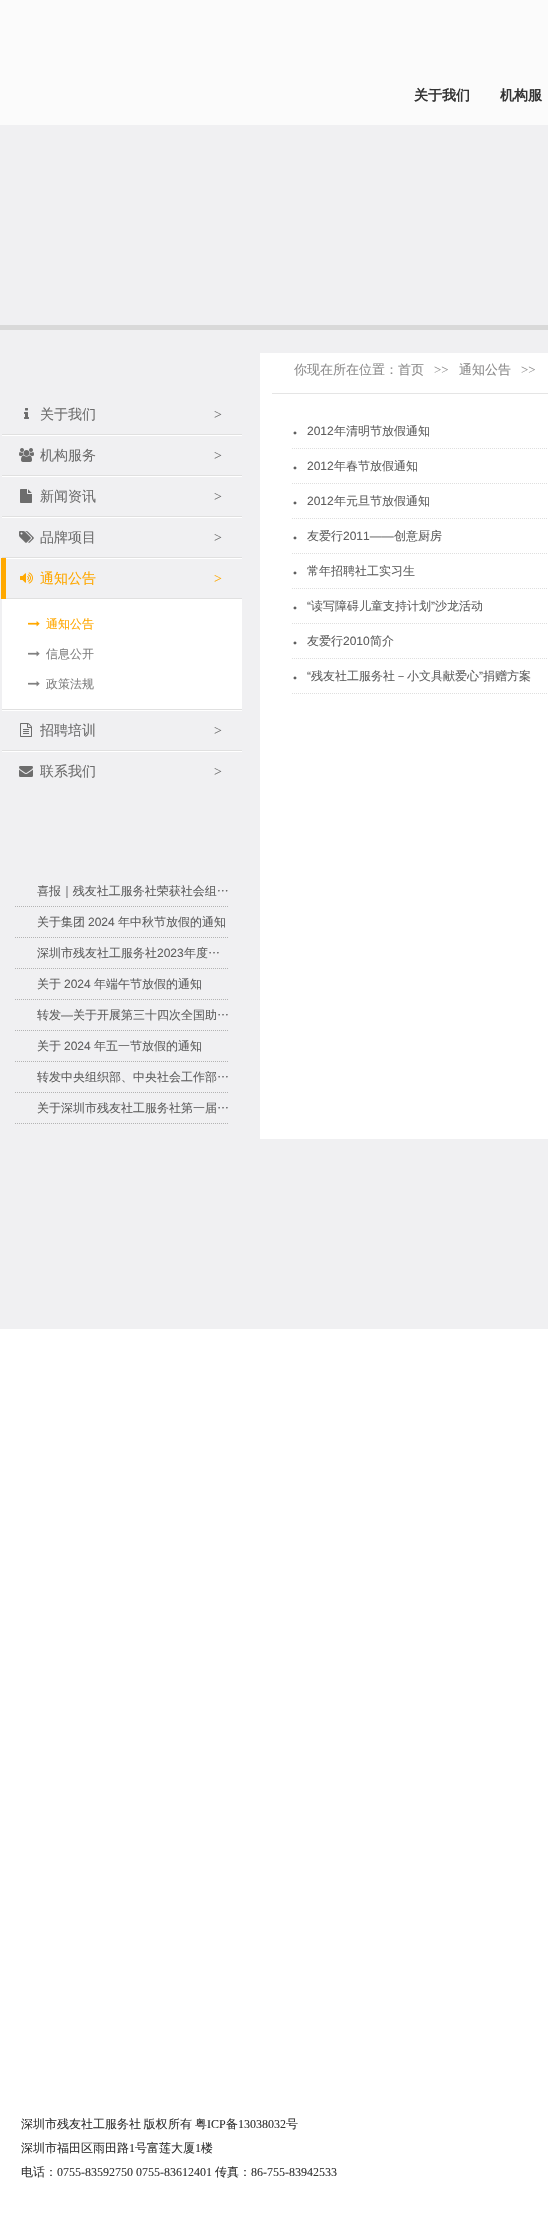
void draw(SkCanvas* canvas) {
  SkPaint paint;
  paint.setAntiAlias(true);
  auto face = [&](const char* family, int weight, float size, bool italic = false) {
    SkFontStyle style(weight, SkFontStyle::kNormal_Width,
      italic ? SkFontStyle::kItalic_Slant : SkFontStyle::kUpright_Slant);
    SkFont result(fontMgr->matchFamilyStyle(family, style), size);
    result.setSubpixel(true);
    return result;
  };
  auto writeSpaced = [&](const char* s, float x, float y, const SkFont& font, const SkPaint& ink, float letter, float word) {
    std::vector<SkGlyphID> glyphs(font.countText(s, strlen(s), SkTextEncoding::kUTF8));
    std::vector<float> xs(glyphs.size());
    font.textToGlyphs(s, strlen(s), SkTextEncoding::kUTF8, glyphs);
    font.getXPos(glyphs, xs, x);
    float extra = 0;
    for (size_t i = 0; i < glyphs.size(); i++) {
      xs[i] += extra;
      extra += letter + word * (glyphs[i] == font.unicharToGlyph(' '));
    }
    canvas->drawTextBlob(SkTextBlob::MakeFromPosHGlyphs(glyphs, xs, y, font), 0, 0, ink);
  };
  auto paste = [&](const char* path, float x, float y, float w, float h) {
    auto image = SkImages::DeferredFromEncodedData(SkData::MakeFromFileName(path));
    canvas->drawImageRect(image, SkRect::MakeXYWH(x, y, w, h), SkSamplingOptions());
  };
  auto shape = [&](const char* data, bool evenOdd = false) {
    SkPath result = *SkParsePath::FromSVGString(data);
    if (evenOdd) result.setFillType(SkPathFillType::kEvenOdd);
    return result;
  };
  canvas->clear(0xffffffff);
  {
    const struct { float x, y, w, h; SkColor color; } items[] = {
      {0, 0, 548, 125, 0xfffbfbfb},
      {0, 125, 548, 1204, 0xfff0f0f2},
      {0, 325, 548, 5, 0xffd9d9d9},
      {2, 434, 240, 1, 0xffe0e0e0},
    };
    for (auto [x, y, w, h, color] : items) {
      paint.setColor(color);
      canvas->drawRect(SkRect::MakeXYWH(x, y, w, h), paint);
    }
  }
  paste("img/1.png", 24, 408, 5, 11);
  paint.setColor(0xffffffff);
  canvas->drawRect(SkRect::MakeXYWH(2, 435, 240, 1), paint);
  paint.setColor(0xffe0e0e0);
  canvas->drawRect(SkRect::MakeXYWH(2, 475, 240, 1), paint);
  paste("img/2.png", 19, 448, 15, 14);
  paint.setColor(0xffffffff);
  canvas->drawRect(SkRect::MakeXYWH(2, 476, 240, 1), paint);
  paint.setColor(0xffe0e0e0);
  canvas->drawRect(SkRect::MakeXYWH(2, 516, 240, 1), paint);
  paste("img/3.png", 20, 489, 12, 14);
  paint.setColor(0xffffffff);
  canvas->drawRect(SkRect::MakeXYWH(2, 517, 240, 1), paint);
  paint.setColor(0xffe0e0e0);
  canvas->drawRect(SkRect::MakeXYWH(2, 557, 240, 1), paint);
  paste("img/4.png", 19, 531, 15, 12);
  {
    const struct { float x, y, w, h; SkColor color; } items[] = {
      {2, 558, 240, 1, 0xffffffff},
      {2, 598, 240, 1, 0xffe0e0e0},
      {1, 558, 5, 41, 0xffffa800},
    };
    for (auto [x, y, w, h, color] : items) {
      paint.setColor(color);
      canvas->drawRect(SkRect::MakeXYWH(x, y, w, h), paint);
    }
  }
  paste("img/5.png", 20, 572, 13, 12);
  paint.setColor(0xffffffff);
  canvas->drawRect(SkRect::MakeXYWH(2, 599, 240, 110), paint);
  paint.setColor(0xffe0e0e0);
  canvas->drawRect(SkRect::MakeXYWH(2, 709, 240, 1), paint);
  paste("img/6.png", 28, 621, 12, 6);
  paste("img/7.png", 28, 651, 12, 6);
  paste("img/7.png", 28, 681, 12, 6);
  paint.setColor(0xffffffff);
  canvas->drawRect(SkRect::MakeXYWH(2, 710, 240, 1), paint);
  paint.setColor(0xffe0e0e0);
  canvas->drawRect(SkRect::MakeXYWH(2, 750, 240, 1), paint);
  paste("img/8.png", 20, 723, 12, 14);
  paint.setColor(0xffffffff);
  canvas->drawRect(SkRect::MakeXYWH(2, 751, 240, 1), paint);
  paste("img/9.png", 19, 766, 14, 11);
  paint.setStroke(true);
  paint.setStrokeWidth(1);
  paint.setColor(0xffb3b3b3);
  paint.setPathEffect(SkDashPathEffect::Make({{1, 1}}, 0));
  canvas->drawPath(shape("M15 906.5H229"), paint);
  paint.setPathEffect(nullptr);
  paint.setPathEffect(SkDashPathEffect::Make({{1, 1}}, 0));
  canvas->drawPath(shape("M15 937.5H229"), paint);
  paint.setPathEffect(nullptr);
  paint.setPathEffect(SkDashPathEffect::Make({{1, 1}}, 0));
  canvas->drawPath(shape("M15 968.5H229"), paint);
  paint.setPathEffect(nullptr);
  paint.setPathEffect(SkDashPathEffect::Make({{1, 1}}, 0));
  canvas->drawPath(shape("M15 999.5H229"), paint);
  paint.setPathEffect(nullptr);
  paint.setPathEffect(SkDashPathEffect::Make({{1, 1}}, 0));
  canvas->drawPath(shape("M15 1030.5H229"), paint);
  paint.setPathEffect(nullptr);
  paint.setPathEffect(SkDashPathEffect::Make({{1, 1}}, 0));
  canvas->drawPath(shape("M15 1061.5H229"), paint);
  paint.setPathEffect(nullptr);
  paint.setPathEffect(SkDashPathEffect::Make({{1, 1}}, 0));
  canvas->drawPath(shape("M15 1092.5H229"), paint);
  paint.setPathEffect(nullptr);
  paint.setPathEffect(SkDashPathEffect::Make({{1, 1}}, 0));
  canvas->drawPath(shape("M15 1123.5H229"), paint);
  paint.setPathEffect(nullptr);
  paint.setStroke(false);
  paint.setColor(0xffffffff);
  canvas->drawRect(SkRect::MakeXYWH(260, 353, 288, 786), paint);
  paint.setColor(0xffe5e5e5);
  canvas->drawRect(SkRect::MakeXYWH(272, 393, 276, 1), paint);
  paint.setStroke(true);
  paint.setColor(0xffdfdfdf);
  paint.setPathEffect(SkDashPathEffect::Make({{1, 1}}, 0));
  canvas->drawPath(shape("M292 448.5H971"), paint);
  paint.setPathEffect(nullptr);
  paint.setPathEffect(SkDashPathEffect::Make({{1, 1}}, 0));
  canvas->drawPath(shape("M292 483.5H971"), paint);
  paint.setPathEffect(nullptr);
  paint.setPathEffect(SkDashPathEffect::Make({{1, 1}}, 0));
  canvas->drawPath(shape("M292 518.5H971"), paint);
  paint.setPathEffect(nullptr);
  paint.setPathEffect(SkDashPathEffect::Make({{1, 1}}, 0));
  canvas->drawPath(shape("M292 553.5H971"), paint);
  paint.setPathEffect(nullptr);
  paint.setPathEffect(SkDashPathEffect::Make({{1, 1}}, 0));
  canvas->drawPath(shape("M292 588.5H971"), paint);
  paint.setPathEffect(nullptr);
  paint.setPathEffect(SkDashPathEffect::Make({{1, 1}}, 0));
  canvas->drawPath(shape("M292 623.5H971"), paint);
  paint.setPathEffect(nullptr);
  paint.setPathEffect(SkDashPathEffect::Make({{1, 1}}, 0));
  canvas->drawPath(shape("M292 658.5H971"), paint);
  paint.setPathEffect(nullptr);
  paint.setPathEffect(SkDashPathEffect::Make({{1, 1}}, 0));
  canvas->drawPath(shape("M292 693.5H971"), paint);
  paint.setPathEffect(nullptr);
  auto f0 = face("WenQuanYi Zen Hei", 700, 14);
  paint.setStroke(false);
  paint.setColor(0xff333333);
  canvas->drawString("关于我们", 414, 100, f0, paint);
  canvas->drawString("机构服", 500, 100, f0, paint);
  auto f1 = face("WenQuanYi Zen Hei", 500, 14);
  paint.setColor(0xff6d6d6d);
  canvas->drawString("关于我们", 40, 419, f1, paint);
  auto f2 = face("Liberation Serif", 400, 14);
  canvas->drawString(">", 214, 419, f2, paint);
  canvas->drawString("机构服务", 40, 460, f1, paint);
  canvas->drawString(">", 214, 460, f2, paint);
  canvas->drawString("新闻资讯", 40, 501, f1, paint);
  canvas->drawString(">", 214, 501, f2, paint);
  canvas->drawString("品牌项目", 40, 542, f1, paint);
  canvas->drawString(">", 214, 542, f2, paint);
  paint.setColor(0xffffa800);
  canvas->drawString("通知公告", 40, 583, f1, paint);
  canvas->drawString(">", 214, 583, f2, paint);
  auto f3 = face("WenQuanYi Zen Hei", 500, 12);
  canvas->drawString("通知公告", 46, 628, f3, paint);
  paint.setColor(0xff808080);
  canvas->drawString("信息公开", 46, 658, f3, paint);
  canvas->drawString("政策法规", 46, 688, f3, paint);
  paint.setColor(0xff6d6d6d);
  canvas->drawString("招聘培训", 40, 735, f1, paint);
  canvas->drawString(">", 214, 735, f2, paint);
  canvas->drawString("联系我们", 40, 776, f1, paint);
  canvas->drawString(">", 214, 776, f2, paint);
  paint.setColor(0xff5f5f5f);
  canvas->drawString("喜报｜残友社工服务社荣获社会组…", 37, 895, f3, paint);
  canvas->drawString("关于集团", 37, 926, f3, paint);
  auto f4 = face("Liberation Sans", 400, 12);
  canvas->drawString("2024", 88, 926, f4, paint);
  canvas->drawString("年中秋节放假的通知", 118, 926, f3, paint);
  canvas->drawString("深圳市残友社工服务社", 37, 957, f3, paint);
  canvas->drawString("2023", 157, 957, f4, paint);
  canvas->drawString("年度…", 184, 957, f3, paint);
  canvas->drawString("关于", 37, 988, f3, paint);
  canvas->drawString("2024", 64, 988, f4, paint);
  canvas->drawString("年端午节放假的通知", 94, 988, f3, paint);
  canvas->drawString("转发", 37, 1019, f3, paint);
  canvas->drawString("—", 61, 1019, f4, paint);
  canvas->drawString("关于开展第三十四次全国助…", 73, 1019, f3, paint);
  canvas->drawString("关于", 37, 1050, f3, paint);
  canvas->drawString("2024", 64, 1050, f4, paint);
  {
    const struct { const char* s; float x, y; } items[] = {
      {"年五一节放假的通知", 94, 1050},
      {"转发中央组织部、中央社会工作部…", 37, 1081},
      {"关于深圳市残友社工服务社第一届…", 37, 1112},
    };
    for (auto [s, x, y] : items) {
      canvas->drawString(s, x, y, f3, paint);
    }
  }
  auto f5 = face("WenQuanYi Zen Hei", 500, 13);
  paint.setColor(0xff8c8b8b);
  canvas->drawString("你现在所在位置：首页", 294, 374, f5, paint);
  auto f6 = face("Liberation Serif", 400, 13);
  canvas->drawString(">>", 434, 374, f6, paint);
  canvas->drawString("通知公告", 459, 374, f5, paint);
  canvas->drawString(">>", 521, 374, f6, paint);
  auto f7 = face("Liberation Serif", 400, 24);
  paint.setColor(0xff5f5f5f);
  canvas->drawString(".", 292, 434, f7, paint);
  canvas->drawString("2012", 307, 435, f4, paint);
  canvas->drawString("年清明节放假通知", 334, 435, f3, paint);
  canvas->drawString(".", 292, 469, f7, paint);
  canvas->drawString("2012", 307, 470, f4, paint);
  canvas->drawString("年春节放假通知", 334, 470, f3, paint);
  canvas->drawString(".", 292, 504, f7, paint);
  canvas->drawString("2012", 307, 505, f4, paint);
  canvas->drawString("年元旦节放假通知", 334, 505, f3, paint);
  canvas->drawString(".", 292, 539, f7, paint);
  canvas->drawString("友爱行", 307, 540, f3, paint);
  canvas->drawString("2011——", 343, 540, f4, paint);
  canvas->drawString("创意厨房", 394, 540, f3, paint);
  canvas->drawString(".", 292, 574, f7, paint);
  canvas->drawString("常年招聘社工实习生", 307, 575, f3, paint);
  canvas->drawString("“", 307, 610, f4, paint);
  canvas->drawString("读写障碍儿童支持计划", 311, 610, f3, paint);
  canvas->drawString("”", 431, 610, f4, paint);
  canvas->drawString("沙龙活动", 435, 610, f3, paint);
  canvas->drawString(".", 292, 609, f7, paint);
  canvas->drawString(".", 292, 644, f7, paint);
  canvas->drawString("友爱行", 307, 645, f3, paint);
  canvas->drawString("2010", 343, 645, f4, paint);
  canvas->drawString("简介", 370, 645, f3, paint);
  canvas->drawString("“", 307, 680, f4, paint);
  canvas->drawString("残友社工服务社－小文具献爱心", 311, 680, f3, paint);
  canvas->drawString("”", 479, 680, f4, paint);
  canvas->drawString("捐赠方案", 483, 680, f3, paint);
  canvas->drawString(".", 292, 679, f7, paint);
  paint.setColor(0xff333333);
  writeSpaced("深圳市残友社工服务社 版权", 21, 2128, f3, paint, 0, -1);
  canvas->drawString("所有", 168, 2128, f3, paint);
  canvas->drawString("粤", 195, 2128, f3, paint);
  auto f8 = face("Liberation Serif", 400, 12);
  canvas->drawString("ICP", 207, 2128, f8, paint);
  canvas->drawString("备", 226, 2128, f3, paint);
  canvas->drawString("13038032", 238, 2128, f8, paint);
  canvas->drawString("号", 286, 2128, f3, paint);
  canvas->drawString("深圳市福田区雨田路", 21, 2152, f3, paint);
  canvas->drawString("1", 129, 2152, f8, paint);
  canvas->drawString("号富莲大厦", 135, 2152, f3, paint);
  canvas->drawString("1", 195, 2152, f8, paint);
  canvas->drawString("楼", 201, 2152, f3, paint);
  canvas->drawString("电话：", 21, 2176, f3, paint);
  canvas->drawString("0755-83592750 0755-83612401", 57, 2176, f8, paint);
  canvas->drawString("传真：", 215, 2176, f3, paint);
  canvas->drawString("86-755-83942533", 251, 2176, f8, paint);
}
